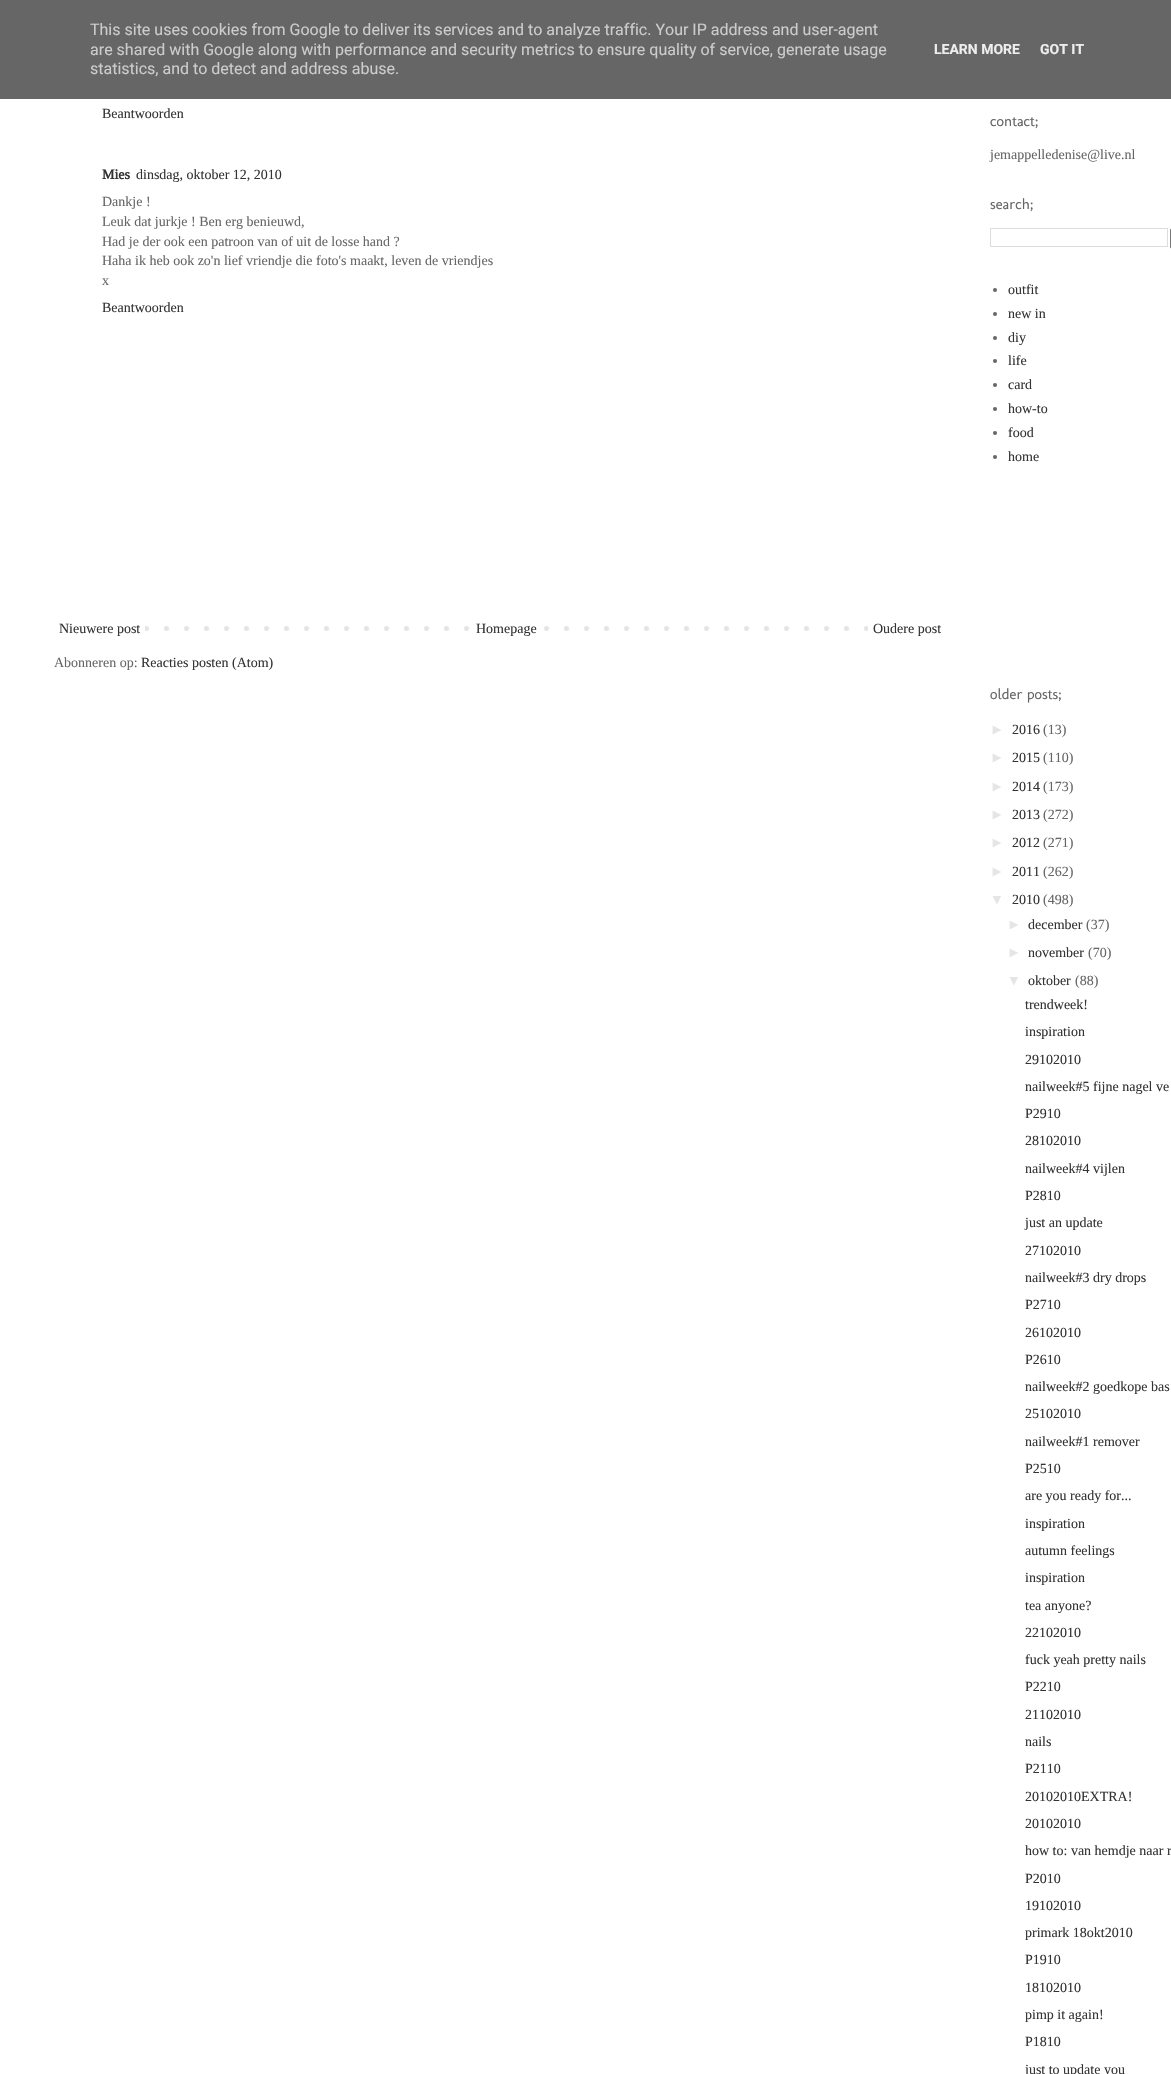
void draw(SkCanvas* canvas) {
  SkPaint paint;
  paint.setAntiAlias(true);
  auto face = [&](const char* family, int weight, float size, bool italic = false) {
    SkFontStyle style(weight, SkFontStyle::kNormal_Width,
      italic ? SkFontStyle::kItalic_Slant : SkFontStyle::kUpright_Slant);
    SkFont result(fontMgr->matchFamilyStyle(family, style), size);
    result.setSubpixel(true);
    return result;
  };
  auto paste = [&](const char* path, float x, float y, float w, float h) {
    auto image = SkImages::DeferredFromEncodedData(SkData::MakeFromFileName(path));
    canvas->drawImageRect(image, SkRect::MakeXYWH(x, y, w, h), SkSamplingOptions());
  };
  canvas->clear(0xffffffff);
  paint.setColor(0xff666666);
  canvas->drawRect(SkRect::MakeXYWH(0, 0, 1171, 99), paint);
  paste("img/1.png", 145, 626, 723, 5);
  paint.setColor(0xffffffff);
  canvas->drawRect(SkRect::MakeXYWH(484, 626, 46, 5), paint);
  paint.setStroke(true);
  paint.setStrokeWidth(1);
  paint.setColor(0xffdddddd);
  canvas->drawRect(SkRect::MakeXYWH(990.5f, 228.5f, 177, 18), paint);
  paint.setColor(0xff767676);
  canvas->drawRoundRect(SkRect::MakeXYWH(1170.5f, 228.5f, 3, 20), 1.5f, 1.5f, paint);
  paint.setStroke(false);
  paint.setColor(0xff666666);
  canvas->drawCircle(995, 290, 2, paint);
  canvas->drawCircle(995, 314, 2, paint);
  canvas->drawCircle(995, 338, 2, paint);
  canvas->drawCircle(995, 361, 2, paint);
  canvas->drawCircle(995, 385, 2, paint);
  canvas->drawCircle(995, 409, 2, paint);
  canvas->drawCircle(995, 433, 2, paint);
  canvas->drawCircle(995, 457, 2, paint);
  auto f0 = face("Roboto", 400, 16);
  paint.setColor(0xffcccccc);
  {
    const struct { const char* s; float x, y; } items[] = {
      {"This site uses cookies from Google to deliver its services and to analyze traffic. Your IP address and user-agent", 90, 35},
      {"are shared with Google along with performance and security metrics to ensure quality of service, generate usage", 90, 55},
      {"statistics, and to detect and address abuse.", 90, 74},
    };
    for (auto [s, x, y] : items) {
      canvas->drawString(s, x, y, f0, paint);
    }
  }
  auto f1 = face("Roboto", 700, 14);
  paint.setColor(0xffeeeeee);
  canvas->drawString("LEARN MORE", 934, 54, f1, paint);
  canvas->drawString("GOT IT", 1040, 54, f1, paint);
  auto f2 = face("Tinos", 400, 14);
  paint.setColor(0xff333333);
  canvas->drawString("Beantwoorden", 102, 118, f2, paint);
  auto f3 = face("Tinos", 700, 14);
  canvas->drawString("Mies", 102, 179, f3, paint);
  canvas->drawString("dinsdag, oktober 12, 2010", 136, 179, f2, paint);
  paint.setColor(0xff666666);
  {
    const struct { const char* s; float x, y; } items[] = {
      {"Dankje !", 102, 206},
      {"Leuk dat jurkje ! Ben erg benieuwd,", 102, 226},
      {"Had je der ook een patroon van of uit de losse hand ?", 102, 246},
      {"Haha ik heb ook zo'n lief vriendje die foto's maakt, leven de vriendjes", 102, 265},
      {"x", 102, 285},
    };
    for (auto [s, x, y] : items) {
      canvas->drawString(s, x, y, f2, paint);
    }
  }
  paint.setColor(0xff333333);
  {
    const struct { const char* s; float x, y; } items[] = {
      {"Beantwoorden", 102, 312},
      {"Nieuwere post", 59, 633},
      {"Homepage", 476, 633},
      {"Oudere post", 873, 633},
    };
    for (auto [s, x, y] : items) {
      canvas->drawString(s, x, y, f2, paint);
    }
  }
  paint.setColor(0xff666666);
  canvas->drawString("Abonneren op:", 54, 667, f2, paint);
  paint.setColor(0xff333333);
  canvas->drawString("Reacties posten (Atom)", 141, 667, f2, paint);
  auto f4 = face("Molengo", 400, 15);
  paint.setColor(0xff666666);
  canvas->drawString("contact;", 990, 126, f4, paint);
  canvas->drawString("jemappelledenise@live.nl", 990, 159, f2, paint);
  canvas->drawString("search;", 990, 209, f4, paint);
  paint.setColor(0xff333333);
  {
    const struct { const char* s; float x, y; } items[] = {
      {"outfit", 1008, 294},
      {"new in", 1008, 318},
      {"diy", 1008, 342},
      {"life", 1008, 365},
      {"card", 1008, 389},
      {"how-to", 1008, 413},
      {"food", 1008, 437},
      {"home", 1008, 461},
    };
    for (auto [s, x, y] : items) {
      canvas->drawString(s, x, y, f2, paint);
    }
  }
  paint.setColor(0xff666666);
  canvas->drawString("older posts;", 990, 699, f4, paint);
  auto f5 = face("Liberation Sans", 400, 14);
  paint.setColor(0xffe5e5e5);
  canvas->drawString("►", 990, 734, f5, paint);
  paint.setColor(0xff333333);
  canvas->drawString("2016", 1012, 734, f2, paint);
  paint.setColor(0xff666666);
  canvas->drawString("(13)", 1043, 734, f2, paint);
  paint.setColor(0xffe5e5e5);
  canvas->drawString("►", 990, 762, f5, paint);
  paint.setColor(0xff333333);
  canvas->drawString("2015", 1012, 762, f2, paint);
  paint.setColor(0xff666666);
  canvas->drawString("(110)", 1043, 762, f2, paint);
  paint.setColor(0xffe5e5e5);
  canvas->drawString("►", 990, 791, f5, paint);
  paint.setColor(0xff333333);
  canvas->drawString("2014", 1012, 791, f2, paint);
  paint.setColor(0xff666666);
  canvas->drawString("(173)", 1043, 791, f2, paint);
  paint.setColor(0xffe5e5e5);
  canvas->drawString("►", 990, 819, f5, paint);
  paint.setColor(0xff333333);
  canvas->drawString("2013", 1012, 819, f2, paint);
  paint.setColor(0xff666666);
  canvas->drawString("(272)", 1043, 819, f2, paint);
  paint.setColor(0xffe5e5e5);
  canvas->drawString("►", 990, 847, f5, paint);
  paint.setColor(0xff333333);
  canvas->drawString("2012", 1012, 847, f2, paint);
  paint.setColor(0xff666666);
  canvas->drawString("(271)", 1043, 847, f2, paint);
  paint.setColor(0xffe5e5e5);
  canvas->drawString("►", 990, 876, f5, paint);
  paint.setColor(0xff333333);
  canvas->drawString("2011", 1012, 876, f2, paint);
  paint.setColor(0xff666666);
  canvas->drawString("(262)", 1043, 876, f2, paint);
  paint.setColor(0xffe5e5e5);
  canvas->drawString("▼", 990, 904, f5, paint);
  paint.setColor(0xff333333);
  canvas->drawString("2010", 1012, 904, f2, paint);
  paint.setColor(0xff666666);
  canvas->drawString("(498)", 1043, 904, f2, paint);
  paint.setColor(0xffe5e5e5);
  canvas->drawString("►", 1007, 929, f5, paint);
  paint.setColor(0xff333333);
  canvas->drawString("december", 1028, 929, f2, paint);
  paint.setColor(0xff666666);
  canvas->drawString("(37)", 1086, 929, f2, paint);
  paint.setColor(0xffe5e5e5);
  canvas->drawString("►", 1007, 957, f5, paint);
  paint.setColor(0xff333333);
  canvas->drawString("november", 1028, 957, f2, paint);
  paint.setColor(0xff666666);
  canvas->drawString("(70)", 1088, 957, f2, paint);
  paint.setColor(0xffe5e5e5);
  canvas->drawString("▼", 1007, 985, f5, paint);
  paint.setColor(0xff333333);
  canvas->drawString("oktober", 1028, 985, f2, paint);
  paint.setColor(0xff666666);
  canvas->drawString("(88)", 1075, 985, f2, paint);
  paint.setColor(0xff333333);
  {
    const struct { const char* s; float x, y; } items[] = {
      {"trendweek!", 1025, 1009},
      {"inspiration", 1025, 1036},
      {"29102010", 1025, 1064},
      {"nailweek#5 fijne nagel ve", 1025, 1091},
      {"P2910", 1025, 1118},
      {"28102010", 1025, 1145},
      {"nailweek#4 vijlen", 1025, 1173},
      {"P2810", 1025, 1200},
      {"just an update", 1025, 1227},
      {"27102010", 1025, 1255},
      {"nailweek#3 dry drops", 1025, 1282},
      {"P2710", 1025, 1309},
      {"26102010", 1025, 1337},
      {"P2610", 1025, 1364},
      {"nailweek#2 goedkope bas", 1025, 1391},
      {"25102010", 1025, 1418},
      {"nailweek#1 remover", 1025, 1446},
      {"P2510", 1025, 1473},
      {"are you ready for...", 1025, 1500},
      {"inspiration", 1025, 1528},
      {"autumn feelings", 1025, 1555},
      {"inspiration", 1025, 1582},
      {"tea anyone?", 1025, 1610},
      {"22102010", 1025, 1637},
      {"fuck yeah pretty nails", 1025, 1664},
      {"P2210", 1025, 1691},
      {"21102010", 1025, 1719},
      {"nails", 1025, 1746},
      {"P2110", 1025, 1773},
      {"20102010EXTRA!", 1025, 1801},
      {"20102010", 1025, 1828},
      {"how to: van hemdje naar r", 1025, 1855},
      {"P2010", 1025, 1883},
      {"19102010", 1025, 1910},
      {"primark 18okt2010", 1025, 1937},
      {"P1910", 1025, 1964},
      {"18102010", 1025, 1992},
      {"pimp it again!", 1025, 2019},
      {"P1810", 1025, 2046},
      {"just to update you", 1025, 2074},
    };
    for (auto [s, x, y] : items) {
      canvas->drawString(s, x, y, f2, paint);
    }
  }
}
